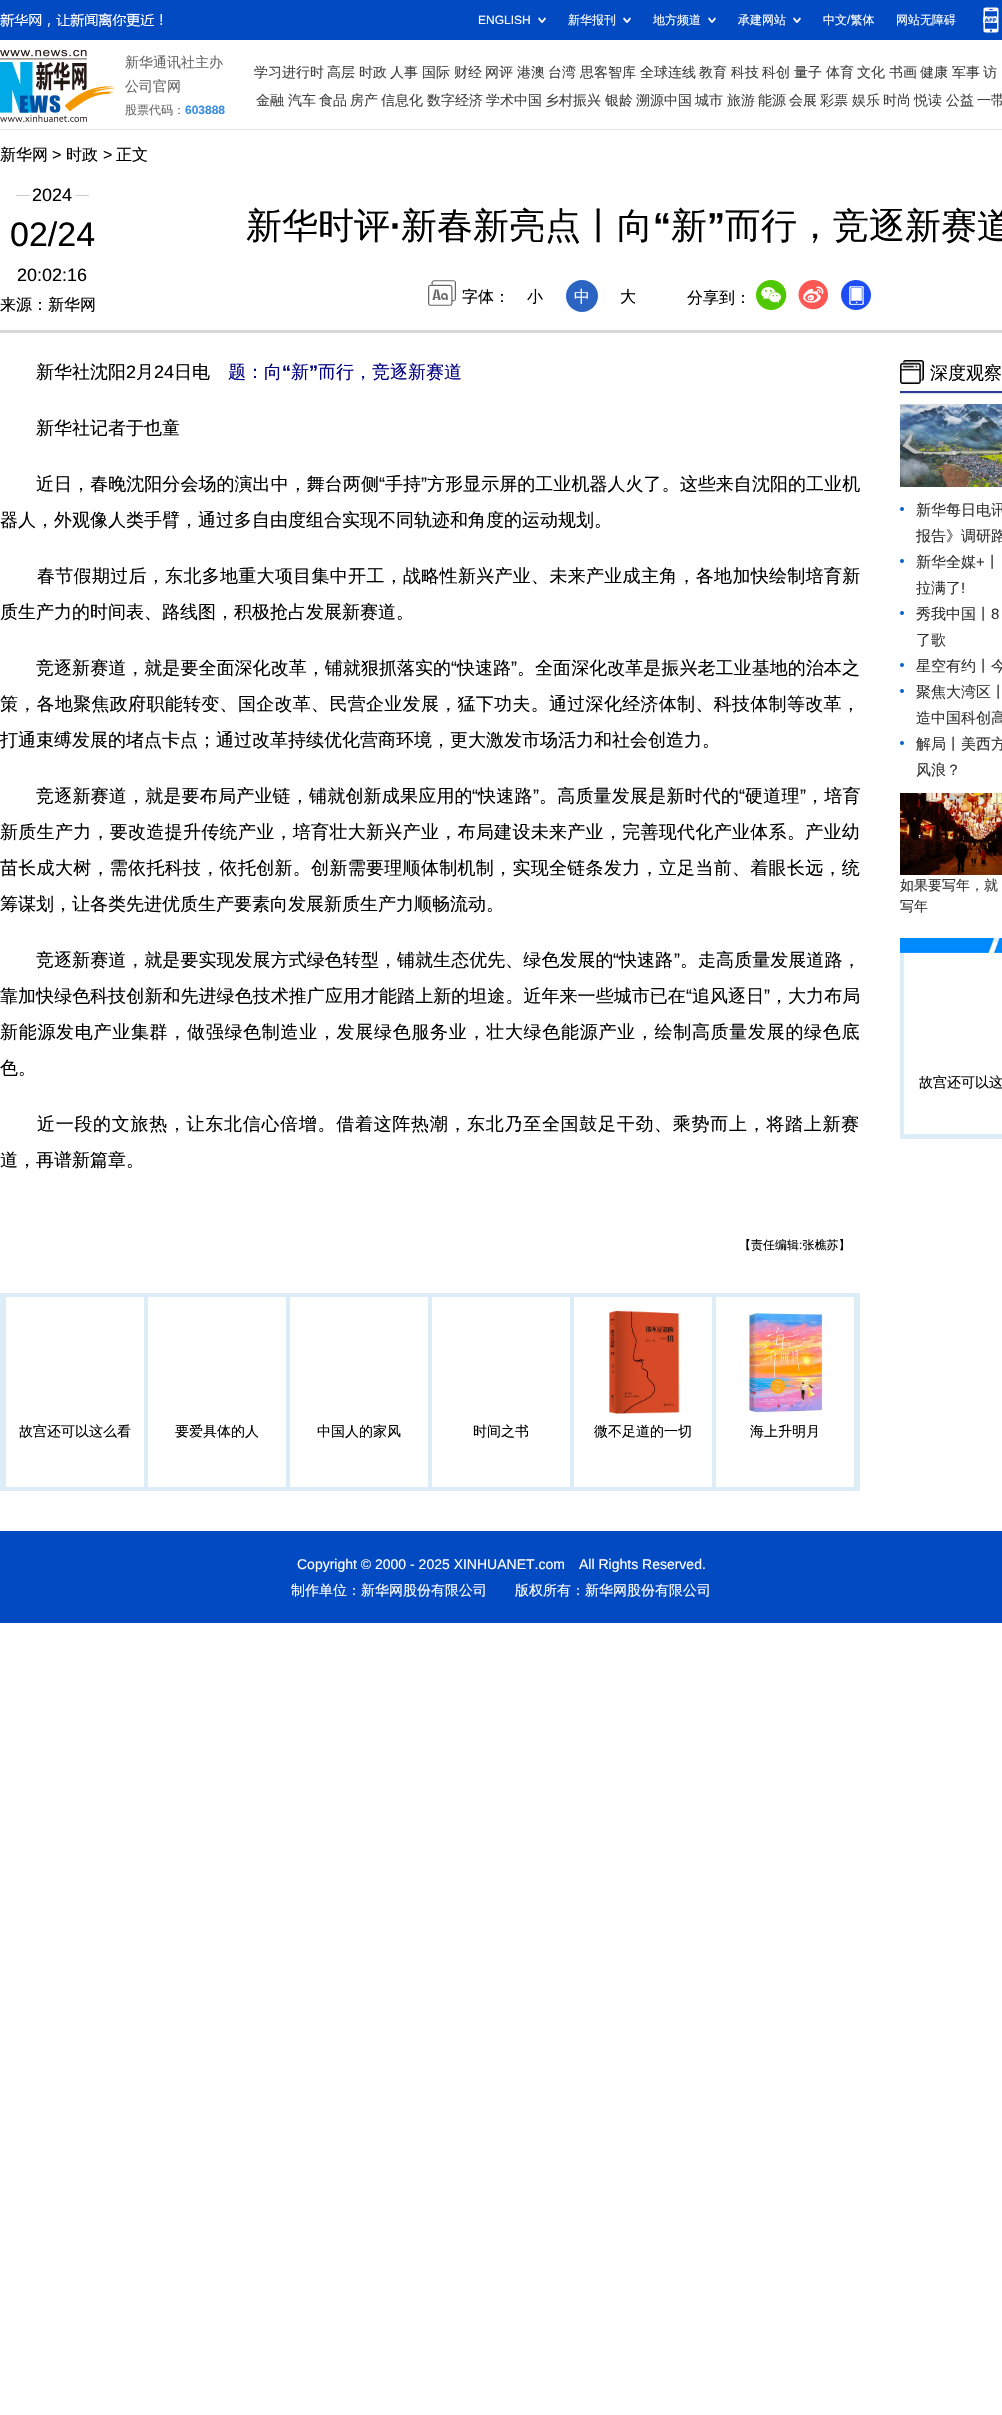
void draw(SkCanvas* canvas) {
  SkPaint paint;
  paint.setAntiAlias(true);
  auto face = [&](const char* family, int weight, float size, bool italic = false) {
    SkFontStyle style(weight, SkFontStyle::kNormal_Width,
      italic ? SkFontStyle::kItalic_Slant : SkFontStyle::kUpright_Slant);
    SkFont result(fontMgr->matchFamilyStyle(family, style), size);
    result.setSubpixel(true);
    return result;
  };
  auto writeSpaced = [&](const char* s, float x, float y, const SkFont& font, const SkPaint& ink, float letter, float word) {
    std::vector<SkGlyphID> glyphs(font.countText(s, strlen(s), SkTextEncoding::kUTF8));
    std::vector<float> xs(glyphs.size());
    font.textToGlyphs(s, strlen(s), SkTextEncoding::kUTF8, glyphs);
    font.getXPos(glyphs, xs, x);
    float extra = 0;
    for (size_t i = 0; i < glyphs.size(); i++) {
      xs[i] += extra;
      extra += letter + word * (glyphs[i] == font.unicharToGlyph(' '));
    }
    canvas->drawTextBlob(SkTextBlob::MakeFromPosHGlyphs(glyphs, xs, y, font), 0, 0, ink);
  };
  auto paste = [&](const char* path, float x, float y, float w, float h) {
    auto image = SkImages::DeferredFromEncodedData(SkData::MakeFromFileName(path));
    canvas->drawImageRect(image, SkRect::MakeXYWH(x, y, w, h), SkSamplingOptions());
  };
  canvas->clear(0xffffffff);
  paint.setColor(0xff024ac2);
  canvas->drawRect(SkRect::MakeXYWH(0, 0, 1002, 40), paint);
  paste("img/1.png", 0, 13, 163, 14);
  paste("img/2.png", 538, 17, 8, 6);
  paste("img/2.png", 623, 17, 8, 6);
  paste("img/2.png", 708, 17, 8, 6);
  paste("img/2.png", 793, 17, 8, 6);
  paste("img/3.png", 983, 7, 16, 26);
  paint.setColor(0xffe4e4e4);
  canvas->drawRect(SkRect::MakeXYWH(0, 129, 1002, 1), paint);
  paste("img/4.png", 0, 50, 115, 72);
  {
    const struct { float x, y, w, h; SkColor color; } items[] = {
      {0, 330, 1002, 3, 0xffd9d9d9},
      {16, 195, 73, 1, 0xffcccccc},
      {30, 195, 45, 1, 0xffffffff},
    };
    for (auto [x, y, w, h, color] : items) {
      paint.setColor(color);
      canvas->drawRect(SkRect::MakeXYWH(x, y, w, h), paint);
    }
  }
  paste("img/5.png", 428, 280, 28, 26);
  paint.setColor(0xff2c64c3);
  canvas->drawCircle(582, 296, 16, paint);
  paste("img/6.png", 756, 280, 31, 30);
  paste("img/7.png", 798, 280, 30, 30);
  paste("img/8.png", 841, 280, 30, 30);
  {
    const struct { float x, y, w, h; SkColor color; } items[] = {
      {0, 1293, 860, 198, 0xffddedf8},
      {6, 1297, 138, 190, 0xffffffff},
      {148, 1297, 138, 190, 0xffffffff},
      {290, 1297, 138, 190, 0xffffffff},
      {432, 1297, 138, 190, 0xffffffff},
      {574, 1297, 138, 190, 0xffffffff},
    };
    for (auto [x, y, w, h, color] : items) {
      paint.setColor(color);
      canvas->drawRect(SkRect::MakeXYWH(x, y, w, h), paint);
    }
  }
  paste("img/9.png", 609, 1310, 71, 104);
  canvas->drawRect(SkRect::MakeXYWH(716, 1297, 138, 190), paint);
  paste("img/10.png", 748, 1313, 75, 100);
  paint.setColor(0xffe3e3e3);
  canvas->drawRect(SkRect::MakeXYWH(900, 393, 102, 1), paint);
  paste("img/11.png", 900, 360, 24, 24);
  paint.setColor(0xff2a3d96);
  canvas->drawRect(SkRect::MakeXYWH(900, 391, 102, 2), paint);
  paste("img/12.png", 900, 404, 102, 83);
  paint.setColor(0xff0762cb);
  canvas->drawCircle(902, 509, 2, paint);
  canvas->drawCircle(902, 561, 2, paint);
  canvas->drawCircle(902, 613, 2, paint);
  canvas->drawCircle(902, 665, 2, paint);
  canvas->drawCircle(902, 691, 2, paint);
  canvas->drawCircle(902, 743, 2, paint);
  paste("img/13.png", 900, 793, 102, 82);
  paste("img/14.png", 900, 938, 102, 201);
  paint.setColor(0xff024ac2);
  canvas->drawRect(SkRect::MakeXYWH(0, 1531, 1002, 92), paint);
  auto f0 = face("Liberation Sans", 400, 12);
  paint.setColor(0xffffffff);
  canvas->drawString("ENGLISH", 478, 24, f0, paint);
  auto f1 = face("WenQuanYi Zen Hei", 500, 12);
  {
    const struct { const char* s; float x, y; } items[] = {
      {"新华报刊", 568, 24},
      {"地方频道", 653, 24},
      {"承建网站", 738, 24},
      {"中文 繁体", 823, 24},
    };
    for (auto [s, x, y] : items) {
      canvas->drawString(s, x, y, f1, paint);
    }
  }
  canvas->drawString("/", 847, 24, f0, paint);
  canvas->drawString("网站无障碍", 896, 24, f1, paint);
  auto f2 = face("WenQuanYi Zen Hei", 500, 14);
  paint.setColor(0xff666666);
  canvas->drawString("新华通讯社主办", 125, 67, f2, paint);
  canvas->drawString("公司官网", 125, 91, f2, paint);
  canvas->drawString("股票代码：", 125, 114, f1, paint);
  auto f3 = face("Liberation Sans", 700, 12);
  paint.setColor(0xff378de4);
  canvas->drawString("603888", 185, 114, f3, paint);
  paint.setColor(0xff404040);
  {
    const struct { const char* s; float x, y; } items[] = {
      {"学习进行时", 254, 77},
      {"高层", 327, 77},
      {"时政", 359, 77},
      {"人事", 390, 77},
      {"国际", 422, 77},
      {"财经", 454, 77},
      {"网评", 485, 77},
      {"港澳", 517, 77},
      {"台湾", 548, 77},
      {"思客智库", 580, 77},
      {"全球连线", 640, 77},
      {"教育", 699, 77},
      {"科技", 731, 77},
      {"科创", 762, 77},
      {"量子", 794, 77},
      {"体育", 826, 77},
      {"文化", 857, 77},
      {"书画", 889, 77},
      {"健康", 920, 77},
      {"军事", 952, 77},
      {"访", 983, 77},
      {"金融", 256, 105},
      {"汽车", 288, 105},
      {"食品", 319, 105},
      {"房产", 350, 105},
      {"信息化", 381, 105},
      {"数字经济", 427, 105},
      {"学术中国", 486, 105},
      {"乡村振兴", 545, 105},
      {"银龄", 605, 105},
      {"溯源中国", 636, 105},
      {"城市", 695, 105},
      {"旅游", 727, 105},
      {"能源", 758, 105},
      {"会展", 789, 105},
      {"彩票", 820, 105},
      {"娱乐", 852, 105},
      {"时尚", 883, 105},
      {"悦读", 914, 105},
      {"公益", 946, 105},
      {"一带", 977, 105},
    };
    for (auto [s, x, y] : items) {
      canvas->drawString(s, x, y, f2, paint);
    }
  }
  auto f4 = face("WenQuanYi Zen Hei", 500, 16);
  paint.setColor(0xff000000);
  canvas->drawString("新华网", 0, 160, f4, paint);
  auto f5 = face("Liberation Sans", 400, 16);
  canvas->drawString(">", 52, 160, f5, paint);
  canvas->drawString("时政", 66, 160, f4, paint);
  canvas->drawString(">", 103, 160, f5, paint);
  canvas->drawString("正文", 116, 160, f4, paint);
  auto f6 = face("Liberation Sans", 400, 18);
  canvas->drawString("2024", 32, 201, f6, paint);
  auto f7 = face("Liberation Sans", 400, 34);
  canvas->drawString("02/24", 10, 246, f7, paint);
  canvas->drawString("20:02:16", 17, 281, f6, paint);
  auto f8 = face("WenQuanYi Zen Hei", 500, 36);
  canvas->drawString("新华时评", 246, 238, f8, paint);
  canvas->drawString("新春新亮点丨向", 401, 238, f8, paint);
  auto f9 = face("Liberation Sans", 700, 36);
  canvas->drawString("“", 653, 238, f9, paint);
  canvas->drawString("新", 671, 238, f8, paint);
  canvas->drawString("”", 707, 238, f9, paint);
  canvas->drawString("而行，竞逐新赛道", 725, 238, f8, paint);
  canvas->drawString("·", 390, 238, f9, paint);
  canvas->drawString("字体：", 462, 302, f4, paint);
  canvas->drawString("小", 527, 302, f4, paint);
  paint.setColor(0xffffffff);
  canvas->drawString("中", 574, 302, f4, paint);
  paint.setColor(0xff000000);
  {
    const struct { const char* s; float x, y; } items[] = {
      {"大", 620, 302},
      {"分享到：", 687, 303},
      {"来源：新华网", 0, 310},
    };
    for (auto [s, x, y] : items) {
      canvas->drawString(s, x, y, f4, paint);
    }
  }
  auto f10 = face("WenQuanYi Zen Hei", 500, 18);
  canvas->drawString("新华社沈阳", 36, 378, f10, paint);
  canvas->drawString("2", 126, 378, f6, paint);
  canvas->drawString("月", 136, 378, f10, paint);
  canvas->drawString("24", 154, 378, f6, paint);
  canvas->drawString("日电", 174, 378, f10, paint);
  paint.setColor(0xff000080);
  canvas->drawString("题：向", 228, 378, f10, paint);
  auto f11 = face("Liberation Sans", 700, 18);
  canvas->drawString("“", 282, 378, f11, paint);
  canvas->drawString("新", 291, 378, f10, paint);
  canvas->drawString("”", 309, 378, f11, paint);
  canvas->drawString("而行，竞逐新赛道", 318, 378, f10, paint);
  paint.setColor(0xff000000);
  canvas->drawString("新华社记者于也童", 36, 434, f10, paint);
  writeSpaced("近日，春晚沈阳分会场的演出中，舞台两侧", 36, 490, f10, paint, 0.05f, 0);
  writeSpaced("“", 379, 490, f6, paint, 0.05f, 0);
  writeSpaced("手持", 385, 490, f10, paint, 0.05f, 0);
  writeSpaced("”", 421, 490, f6, paint, 0.05f, 0);
  writeSpaced("方形显示屏的工业机器人火了。这些来自沈阳的工业机", 427, 490, f10, paint, 0.05f, 0);
  canvas->drawString("器人，外观像人类手臂，通过多自由度组合实现不同轨迹和角度的运动规划。", 0, 526, f10, paint);
  writeSpaced("春节假期过后，东北多地重大项目集中开工，战略性新兴产业、未来产业成主角，各地加快绘制培育新", 37, 582, f10, paint, 0.3f, 0);
  canvas->drawString("质生产力的时间表、路线图，积极抢占发展新赛道。", 0, 618, f10, paint);
  writeSpaced("竞逐新赛道，就是要全面深化改革，铺就狠抓落实的", 36, 674, f10, paint, 0.05f, 0);
  writeSpaced("“", 451, 674, f6, paint, 0.05f, 0);
  writeSpaced("快速路", 457, 674, f10, paint, 0.05f, 0);
  writeSpaced("”", 511, 674, f6, paint, 0.05f, 0);
  writeSpaced("。全面深化改革是振兴老工业基地的治本之", 517, 674, f10, paint, 0.05f, 0);
  writeSpaced("策，各地聚焦政府职能转变、国企改革、民营企业发展，猛下功夫。通过深化经济体制、科技体制等改革，", 0, 710, f10, paint, 0.3f, 0);
  canvas->drawString("打通束缚发展的堵点卡点；通过改革持续优化营商环境，更大激发市场活力和社会创造力。", 0, 746, f10, paint);
  writeSpaced("竞逐新赛道，就是要布局产业链，铺就创新成果应用的", 36, 802, f10, paint, 0.2f, 0);
  writeSpaced("“", 472, 802, f6, paint, 0.2f, 0);
  writeSpaced("快速路", 478, 802, f10, paint, 0.2f, 0);
  writeSpaced("”", 533, 802, f6, paint, 0.2f, 0);
  writeSpaced("。高质量发展是新时代的", 539, 802, f10, paint, 0.2f, 0);
  writeSpaced("“", 739, 802, f6, paint, 0.2f, 0);
  writeSpaced("硬道理", 745, 802, f10, paint, 0.2f, 0);
  writeSpaced("”", 800, 802, f6, paint, 0.2f, 0);
  writeSpaced("，培育", 806, 802, f10, paint, 0.2f, 0);
  writeSpaced("新质生产力，要改造提升传统产业，培育壮大新兴产业，布局建设未来产业，完善现代化产业体系。产业幼", 0, 838, f10, paint, 0.3f, 0);
  writeSpaced("苗长成大树，需依托科技，依托创新。创新需要理顺体制机制，实现全链条发力，立足当前、着眼长远，统", 0, 874, f10, paint, 0.3f, 0);
  canvas->drawString("筹谋划，让各类先进优质生产要素向发展新质生产力顺畅流动。", 0, 910, f10, paint);
  writeSpaced("竞逐新赛道，就是要实现发展方式绿色转型，铺就生态优先、绿色发展的", 36, 966, f10, paint, 0.05f, 0);
  writeSpaced("“", 613, 966, f6, paint, 0.05f, 0);
  writeSpaced("快速路", 619, 966, f10, paint, 0.05f, 0);
  writeSpaced("”", 674, 966, f6, paint, 0.05f, 0);
  writeSpaced("。走高质量发展道路，", 680, 966, f10, paint, 0.05f, 0);
  writeSpaced("靠加快绿色科技创新和先进绿色技术推广应用才能踏上新的坦途。近年来一些城市已在", 0, 1002, f10, paint, 0.05f, 0);
  writeSpaced("“", 686, 1002, f6, paint, 0.05f, 0);
  writeSpaced("追风逐日", 692, 1002, f10, paint, 0.05f, 0);
  writeSpaced("”", 764, 1002, f6, paint, 0.05f, 0);
  writeSpaced("，大力布局", 770, 1002, f10, paint, 0.05f, 0);
  writeSpaced("新能源发电产业集群，做强绿色制造业，发展绿色服务业，壮大绿色能源产业，绘制高质量发展的绿色底", 0, 1038, f10, paint, 0.7f, 0);
  canvas->drawString("色。", 0, 1074, f10, paint);
  writeSpaced("近一段的文旅热，让东北信心倍增。借着这阵热潮，东北乃至全国鼓足干劲、乘势而上，将踏上新赛", 37, 1130, f10, paint, 0.7f, 0);
  canvas->drawString("道，再谱新篇章。", 0, 1166, f10, paint);
  canvas->drawString("【责任编辑 张樵苏】", 739, 1249, f1, paint);
  canvas->drawString(":", 799, 1249, f0, paint);
  {
    const struct { const char* s; float x, y; } items[] = {
      {"故宫还可以这么看", 19, 1436},
      {"要爱具体的人", 175, 1436},
      {"中国人的家风", 317, 1436},
      {"时间之书", 473, 1436},
      {"微不足道的一切", 594, 1436},
      {"海上升明月", 750, 1436},
    };
    for (auto [s, x, y] : items) {
      canvas->drawString(s, x, y, f2, paint);
    }
  }
  canvas->drawString("深度观察", 930, 379, f10, paint);
  auto f12 = face("WenQuanYi Zen Hei", 500, 15);
  paint.setColor(0xff333333);
  {
    const struct { const char* s; float x, y; } items[] = {
      {"新华每日电讯", 916, 515},
      {"报告》调研路", 916, 541},
      {"新华全媒", 916, 567},
    };
    for (auto [s, x, y] : items) {
      canvas->drawString(s, x, y, f12, paint);
    }
  }
  auto f13 = face("Liberation Sans", 400, 15);
  canvas->drawString("+", 976, 567, f13, paint);
  canvas->drawString("丨", 985, 567, f12, paint);
  canvas->drawString("拉满了", 916, 593, f12, paint);
  canvas->drawString("!", 961, 593, f13, paint);
  canvas->drawString("秀我中国丨", 916, 619, f12, paint);
  canvas->drawString("8", 991, 619, f13, paint);
  {
    const struct { const char* s; float x, y; } items[] = {
      {"了歌", 916, 645},
      {"星空有约丨今", 916, 671},
      {"聚焦大湾区丨", 916, 697},
      {"造中国科创高", 916, 723},
      {"解局丨美西方", 916, 749},
      {"风浪？", 916, 775},
    };
    for (auto [s, x, y] : items) {
      canvas->drawString(s, x, y, f12, paint);
    }
  }
  canvas->drawString("如果要写年，就", 900, 890, f2, paint);
  canvas->drawString("写年", 900, 911, f2, paint);
  paint.setColor(0xff000000);
  canvas->drawString("故宫还可以这", 919, 1087, f2, paint);
  auto f14 = face("Liberation Sans", 400, 14);
  paint.setColor(0xffffffff);
  canvas->drawString("Copyright © 2000 - 2025 XINHUANET.com", 297, 1569, f14, paint);
  canvas->drawString("All Rights Reserved.", 579, 1569, f14, paint);
  canvas->drawString("制作单位：新华网股份有限公司　　版权所有：新华网股份有限公司", 291, 1595, f2, paint);
}
